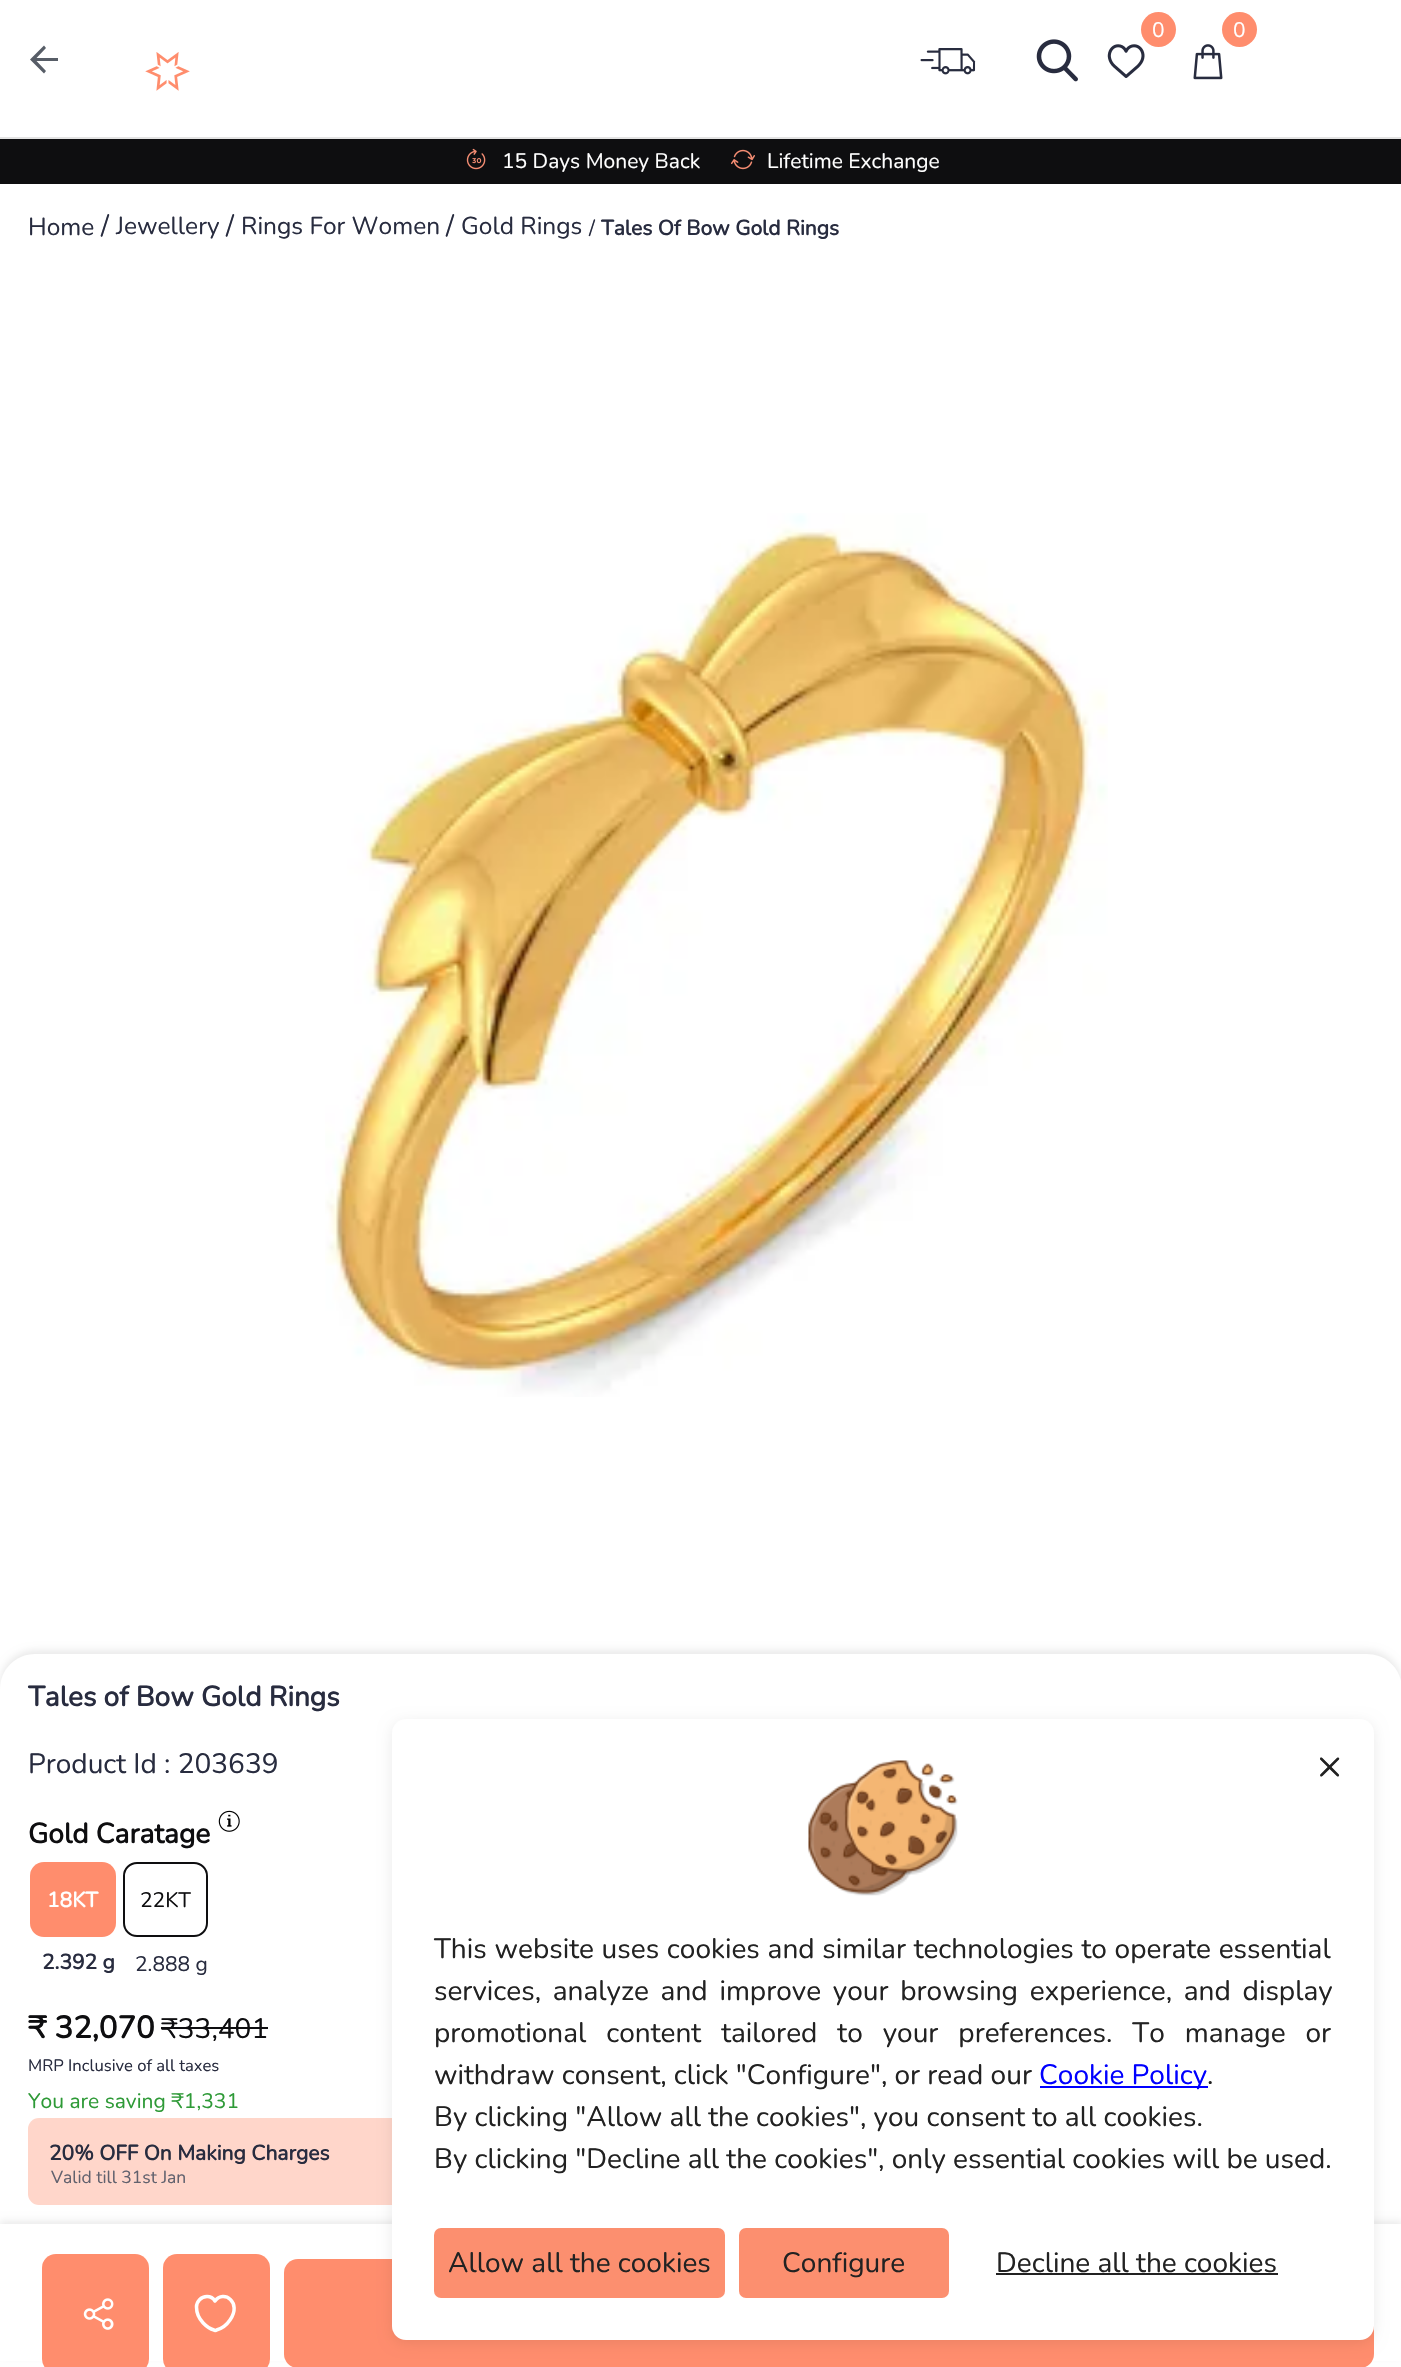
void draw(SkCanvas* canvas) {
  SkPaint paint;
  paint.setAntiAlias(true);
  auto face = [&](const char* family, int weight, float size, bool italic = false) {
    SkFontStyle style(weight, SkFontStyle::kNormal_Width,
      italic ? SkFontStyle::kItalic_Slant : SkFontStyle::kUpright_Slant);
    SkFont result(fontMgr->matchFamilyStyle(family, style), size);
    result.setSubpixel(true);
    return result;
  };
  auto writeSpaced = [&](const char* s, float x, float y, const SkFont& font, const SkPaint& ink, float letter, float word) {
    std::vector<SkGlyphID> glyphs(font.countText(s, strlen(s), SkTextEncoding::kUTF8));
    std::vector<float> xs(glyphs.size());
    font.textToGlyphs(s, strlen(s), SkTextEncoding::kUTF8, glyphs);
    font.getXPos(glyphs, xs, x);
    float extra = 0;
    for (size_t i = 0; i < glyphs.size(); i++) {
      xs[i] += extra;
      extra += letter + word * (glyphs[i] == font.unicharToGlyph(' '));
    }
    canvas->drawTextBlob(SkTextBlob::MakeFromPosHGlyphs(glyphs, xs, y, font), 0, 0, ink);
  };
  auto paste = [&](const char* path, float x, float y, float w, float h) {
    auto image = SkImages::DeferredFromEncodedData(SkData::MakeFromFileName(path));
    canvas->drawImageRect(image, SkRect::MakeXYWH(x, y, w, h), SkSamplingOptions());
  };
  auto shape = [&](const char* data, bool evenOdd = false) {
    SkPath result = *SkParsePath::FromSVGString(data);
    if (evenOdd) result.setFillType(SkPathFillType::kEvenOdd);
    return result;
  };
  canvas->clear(0xffffffff);
  paste("img/1.png", 1107, 44, 38, 34);
  paint.setColor(0xffff8d6d);
  canvas->drawCircle(1158.5f, 29.5f, 17.5f, paint);
  paste("img/2.png", 1193, 44, 30, 36);
  canvas->drawCircle(1239.5f, 29.5f, 17.5f, paint);
  paste("img/3.png", 920, 48, 56, 27);
  paste("img/4.png", 1036, 39, 42, 43);
  paint.setColor(0xff575d67);
  canvas->drawPath(shape("M58 58H36.5L46 48L44 45.5L30 59.5L44 73.5L46 71L36.5 61H58Z"), paint);
  paste("img/5.png", 145, 52, 45, 39);
  paint.setColor(0xffe3e3e3);
  canvas->drawRect(SkRect::MakeXYWH(0, 137, 1401, 2), paint);
  paint.setColor(0xff0e0e10);
  canvas->drawRect(SkRect::MakeXYWH(0, 139, 1401, 45), paint);
  paste("img/6.png", 466, 148, 20, 22);
  paste("img/7.png", 731, 149, 24, 21);
  paste("img/8.png", 325, 513, 783, 884);
  paint.setColor(0x14000000);
  paint.setMaskFilter(SkMaskFilter::MakeBlur(kNormal_SkBlurStyle, 3.5f));
  canvas->drawRoundRect(SkRect::MakeXYWH(0, 1650, 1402, 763), 35, 35, paint);
  paint.setMaskFilter(nullptr);
  paint.setColor(0xffffffff);
  canvas->drawPath(shape("M35 1654H1367C1386.5 1654 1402 1669.5 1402 1689V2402H0V1689C0 1669.5 15.5 1654 35 1654Z"), paint);
  paste("img/9.png", 218, 1810, 22, 22);
  paint.setColor(0xffff8d6d);
  canvas->drawRoundRect(SkRect::MakeXYWH(30, 1862, 86, 75), 14, 14, paint);
  paint.setStroke(true);
  paint.setStrokeWidth(2);
  paint.setColor(0xff0e0e10);
  canvas->drawRoundRect(SkRect::MakeXYWH(124, 1863, 83, 73), 13, 13, paint);
  paint.setStroke(false);
  canvas->drawRect(SkRect::MakeXYWH(161, 2027, 107, 2), paint);
  paint.setColor(0xffffd6ca);
  canvas->drawRoundRect(SkRect::MakeXYWH(28, 2118, 560, 87), 11, 11, paint);
  paint.setColor(0x14000000);
  paint.setMaskFilter(SkMaskFilter::MakeBlur(kNormal_SkBlurStyle, 3.5f));
  canvas->drawRect(SkRect::MakeXYWH(0, 2221, 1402, 136), paint);
  paint.setMaskFilter(nullptr);
  paint.setColor(0xffffffff);
  canvas->drawRect(SkRect::MakeXYWH(0, 2224, 1401, 137), paint);
  paint.setColor(0xffff8d6d);
  canvas->drawRoundRect(SkRect::MakeXYWH(42, 2254, 107, 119), 14, 14, paint);
  paste("img/10.png", 83, 2298, 31, 32);
  canvas->drawRoundRect(SkRect::MakeXYWH(163, 2254, 107, 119), 14, 14, paint);
  paint.setStroke(true);
  paint.setStrokeWidth(3.5f);
  paint.setStrokeCap(SkPaint::kRound_Cap);
  paint.setStrokeJoin(SkPaint::kRound_Join);
  paint.setColor(0xffffffff);
  canvas->drawPath(shape("M216.5 2330C216 2330.5 214.5 2330.5 214 2330C208.5 2328.5 196.5 2320.5 196.5 2307C196.5 2301.5 201 2296.5 207 2296.5C210.5 2296.5 213.5 2298.5 215 2301C223.5 2289.5 242.5 2302 230 2320C227 2324.5 222 2328.5 216.5 2330Z"), paint);
  paint.setStroke(false);
  paint.setColor(0xffff8d6d);
  canvas->drawRoundRect(SkRect::MakeXYWH(284, 2259, 1090, 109), 14, 14, paint);
  paint.setColor(0x14000000);
  paint.setMaskFilter(SkMaskFilter::MakeBlur(kNormal_SkBlurStyle, 7));
  canvas->drawRoundRect(SkRect::MakeXYWH(392, 1722, 982, 621), 14, 14, paint);
  paint.setMaskFilter(nullptr);
  paint.setColor(0xffffffff);
  canvas->drawRoundRect(SkRect::MakeXYWH(392, 1719, 982, 621), 14, 14, paint);
  paste("img/11.png", 808, 1760, 150, 136);
  paint.setColor(0xff0000ff);
  canvas->drawRect(SkRect::MakeXYWH(1040, 2086, 168, 2), paint);
  paint.setColor(0xfffc8f6f);
  canvas->drawRoundRect(SkRect::MakeXYWH(434, 2228, 291, 70), 7, 7, paint);
  canvas->drawRoundRect(SkRect::MakeXYWH(739, 2228, 210, 70), 7, 7, paint);
  paint.setColor(0xff222222);
  canvas->drawRect(SkRect::MakeXYWH(996, 2273, 282, 2), paint);
  auto f0 = face("Nunito", 200, 21);
  paint.setColor(0xffffffff);
  {
    const struct { const char* s; float x, y; } items[] = {
      {"0", 1152, 37},
      {"0", 1233, 37},
      {"15 Days Money Back", 502, 168},
      {"Lifetime Exchange", 767, 168},
    };
    for (auto [s, x, y] : items) {
      canvas->drawString(s, x, y, f0, paint);
    }
  }
  auto f1 = face("Nunito", 200, 24.5f);
  paint.setColor(0xff282c3f);
  canvas->drawString("Home", 28, 235, f1, paint);
  auto f2 = face("Nunito", 200, 28);
  canvas->drawString("/", 101, 235, f2, paint);
  canvas->drawString("Jewellery", 116, 234, f1, paint);
  canvas->drawString("/", 226, 235, f2, paint);
  canvas->drawString("Rings For Women", 241, 234, f1, paint);
  canvas->drawString("/", 446, 235, f2, paint);
  canvas->drawString("Gold Rings", 461, 234, f1, paint);
  canvas->drawString("/", 589, 235, f0, paint);
  auto f3 = face("Nunito", 700, 21);
  canvas->drawString("Tales Of Bow Gold Rings", 601, 235, f3, paint);
  auto f4 = face("Nunito", 700, 28);
  canvas->drawString("Tales of Bow Gold Rings", 28, 1706, f4, paint);
  canvas->drawString("Product Id : 203639", 28, 1773, f2, paint);
  paint.setColor(0xff0e0e10);
  canvas->drawString("Gold Caratage", 28, 1843, f4, paint);
  paint.setColor(0xffffffff);
  canvas->drawString("18KT", 47, 1907, f3, paint);
  paint.setColor(0xff282c3f);
  canvas->drawString("2.392 g", 42, 1969, f3, paint);
  paint.setColor(0xff0e0e10);
  canvas->drawString("22KT", 140, 1907, f0, paint);
  paint.setColor(0xff282c3f);
  canvas->drawString("2.888 g", 135, 1971, f0, paint);
  auto f5 = face("Nunito", 700, 31);
  paint.setColor(0xff0e0e10);
  canvas->drawString("₹ 32,070", 28, 2038, f5, paint);
  canvas->drawString("₹33,401", 161, 2038, f2, paint);
  auto f6 = face("Nunito", 200, 16.6f);
  paint.setColor(0xff282c3f);
  canvas->drawString("MRP Inclusive of all taxes", 28, 2071, f6, paint);
  paint.setColor(0xff2e9a37);
  canvas->drawString("You are saving ₹1,331", 28, 2108, f0, paint);
  paint.setColor(0xff282c3f);
  canvas->drawString("20% OFF On Making Charges", 49, 2160, f3, paint);
  auto f7 = face("Nunito", 200, 17.5f);
  paint.setColor(0xff61616d);
  canvas->drawString("Valid till 31st Jan", 51, 2183, f7, paint);
  auto f8 = face("Nunito", 200, 42);
  paint.setColor(0xff222222);
  canvas->drawString("×", 1317, 1779, f8, paint);
  writeSpaced("This website uses cookies and similar technologies to operate essential", 434, 1958, f2, paint, 0, 0.5f);
  writeSpaced("services, analyze and improve your browsing experience, and display", 434, 2000, f2, paint, 0, 4.5f);
  writeSpaced("promotional content tailored to your preferences. To manage or", 434, 2042, f2, paint, 0, 12.75f);
  canvas->drawString("withdraw consent, click \"Configure\", or read our", 434, 2084, f2, paint);
  paint.setColor(0xff0000ff);
  canvas->drawString("Cookie Policy", 1039, 2084, f2, paint);
  paint.setColor(0xff222222);
  {
    const struct { const char* s; float x, y; } items[] = {
      {".", 1207, 2084},
      {"By clicking \"Allow all the cookies\", you consent to all cookies.", 434, 2126},
      {"By clicking \"Decline all the cookies\", only essential cookies will be used.", 434, 2168},
      {"Allow all the cookies", 448, 2272},
      {"Configure", 782, 2272},
      {"Decline all the cookies", 996, 2272},
    };
    for (auto [s, x, y] : items) {
      canvas->drawString(s, x, y, f2, paint);
    }
  }
}
